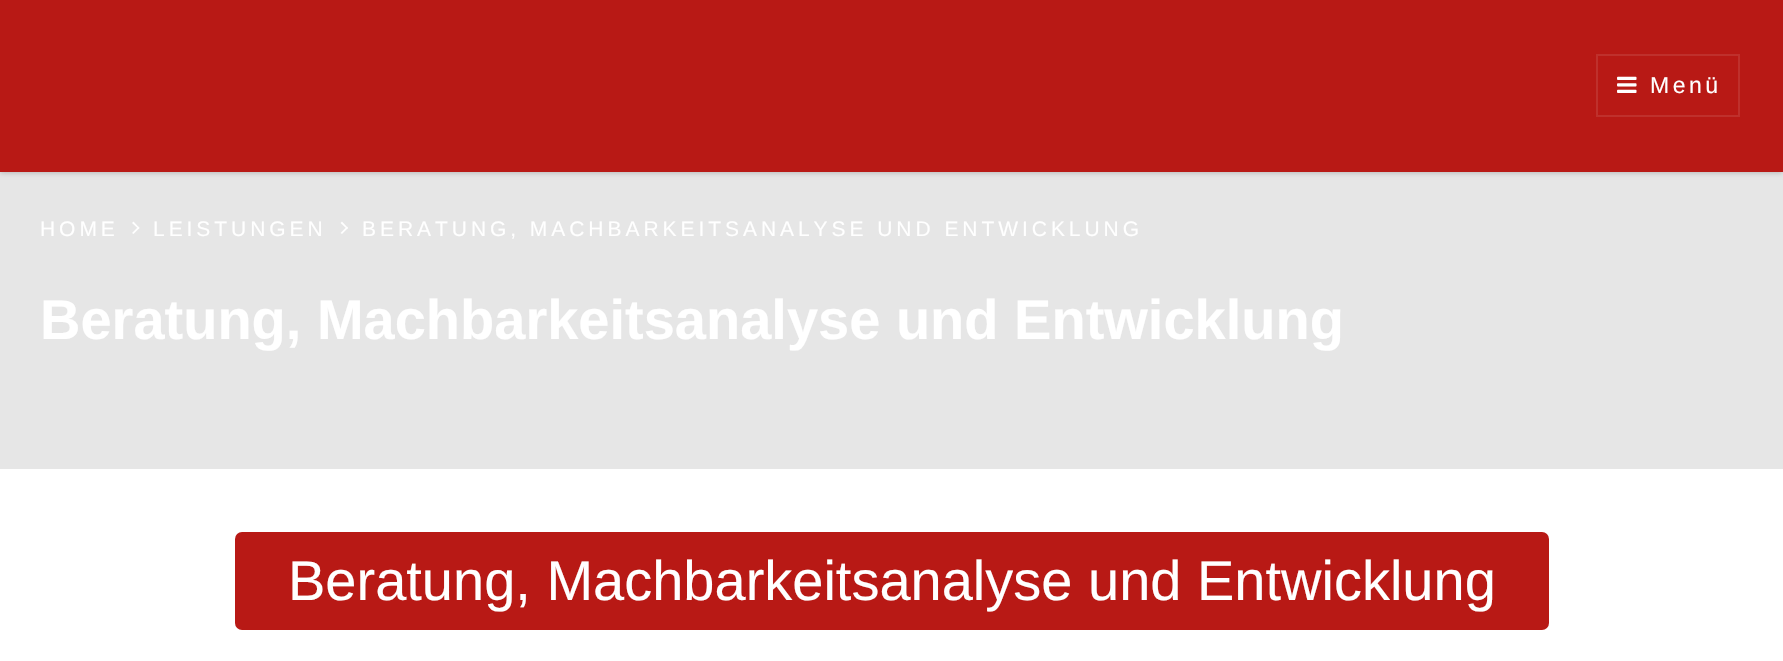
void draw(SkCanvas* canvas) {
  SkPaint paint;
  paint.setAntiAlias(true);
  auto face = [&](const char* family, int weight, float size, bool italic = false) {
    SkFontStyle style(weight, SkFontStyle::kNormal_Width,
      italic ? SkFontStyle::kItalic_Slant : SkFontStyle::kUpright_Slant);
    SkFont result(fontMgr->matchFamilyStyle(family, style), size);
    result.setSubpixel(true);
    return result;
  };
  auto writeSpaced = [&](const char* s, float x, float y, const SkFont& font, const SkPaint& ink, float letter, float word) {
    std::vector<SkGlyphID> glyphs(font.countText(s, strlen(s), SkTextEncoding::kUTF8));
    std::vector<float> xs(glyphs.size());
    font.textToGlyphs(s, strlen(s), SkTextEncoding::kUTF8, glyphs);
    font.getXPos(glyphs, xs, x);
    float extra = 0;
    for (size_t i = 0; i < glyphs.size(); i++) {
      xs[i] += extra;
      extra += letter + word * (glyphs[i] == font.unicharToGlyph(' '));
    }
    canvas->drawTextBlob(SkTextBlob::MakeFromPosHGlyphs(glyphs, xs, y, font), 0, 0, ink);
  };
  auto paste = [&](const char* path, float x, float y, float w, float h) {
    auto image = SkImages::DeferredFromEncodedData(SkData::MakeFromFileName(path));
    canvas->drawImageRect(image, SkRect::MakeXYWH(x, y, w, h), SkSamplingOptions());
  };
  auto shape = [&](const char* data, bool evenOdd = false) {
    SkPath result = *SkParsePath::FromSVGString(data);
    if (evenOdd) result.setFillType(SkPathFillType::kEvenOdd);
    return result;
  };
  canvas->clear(0xffffffff);
  paint.setColor(0xffe6e6e6);
  canvas->drawRect(SkRect::MakeXYWH(0, 172, 1783, 297), paint);
  paint.setColor(0x33000000);
  paint.setMaskFilter(SkMaskFilter::MakeBlur(kNormal_SkBlurStyle, 2.5f));
  canvas->drawRect(SkRect::MakeXYWH(0, 2, 1783, 171), paint);
  paint.setMaskFilter(nullptr);
  paint.setColor(0xffb81915);
  canvas->drawRect(SkRect::MakeXYWH(0, 0, 1783, 172), paint);
  paint.setStroke(true);
  paint.setStrokeWidth(2);
  paint.setColor(0xffbf302c);
  canvas->drawRect(SkRect::MakeXYWH(1597, 55, 142, 61), paint);
  paste("img/1.png", 1617, 76, 20, 17);
  paint.setStroke(false);
  paint.setColor(0xffffffff);
  canvas->drawPath(shape("M132 223L133.5 221.5L139.5 228L138.5 229Z"), paint);
  canvas->drawPath(shape("M132 233L138.5 226.5L139.5 228L133.5 234Z"), paint);
  canvas->drawPath(shape("M340.5 223L342 221.5L348 228L347 229Z"), paint);
  canvas->drawPath(shape("M340.5 233L347 226.5L348 228L342 234Z"), paint);
  paint.setColor(0xffb81915);
  canvas->drawRoundRect(SkRect::MakeXYWH(235, 532, 1314, 98), 7, 7, paint);
  auto f0 = face("Liberation Sans", 400, 23);
  paint.setColor(0xffffffff);
  writeSpaced("Menü", 1650, 93, f0, paint, 3.5f, 0);
  auto f1 = face("Liberation Sans", 400, 21);
  {
    const struct { const char* s; float x, y; } items[] = {
      {"HOME", 40, 236},
      {"LEISTUNGEN", 153, 236},
      {"BERATUNG, MACHBARKEITSANALYSE UND ENTWICKLUNG", 362, 236},
    };
    for (auto [s, x, y] : items) {
      writeSpaced(s, x, y, f1, paint, 3.95f, 0);
    }
  }
  auto f2 = face("Liberation Sans", 700, 56);
  canvas->drawString("Beratung, Machbarkeitsanalyse und Entwicklung", 40, 339, f2, paint);
  auto f3 = face("Liberation Sans", 400, 56);
  canvas->drawString("Beratung, Machbarkeitsanalyse und Entwicklung", 288, 600, f3, paint);
}
